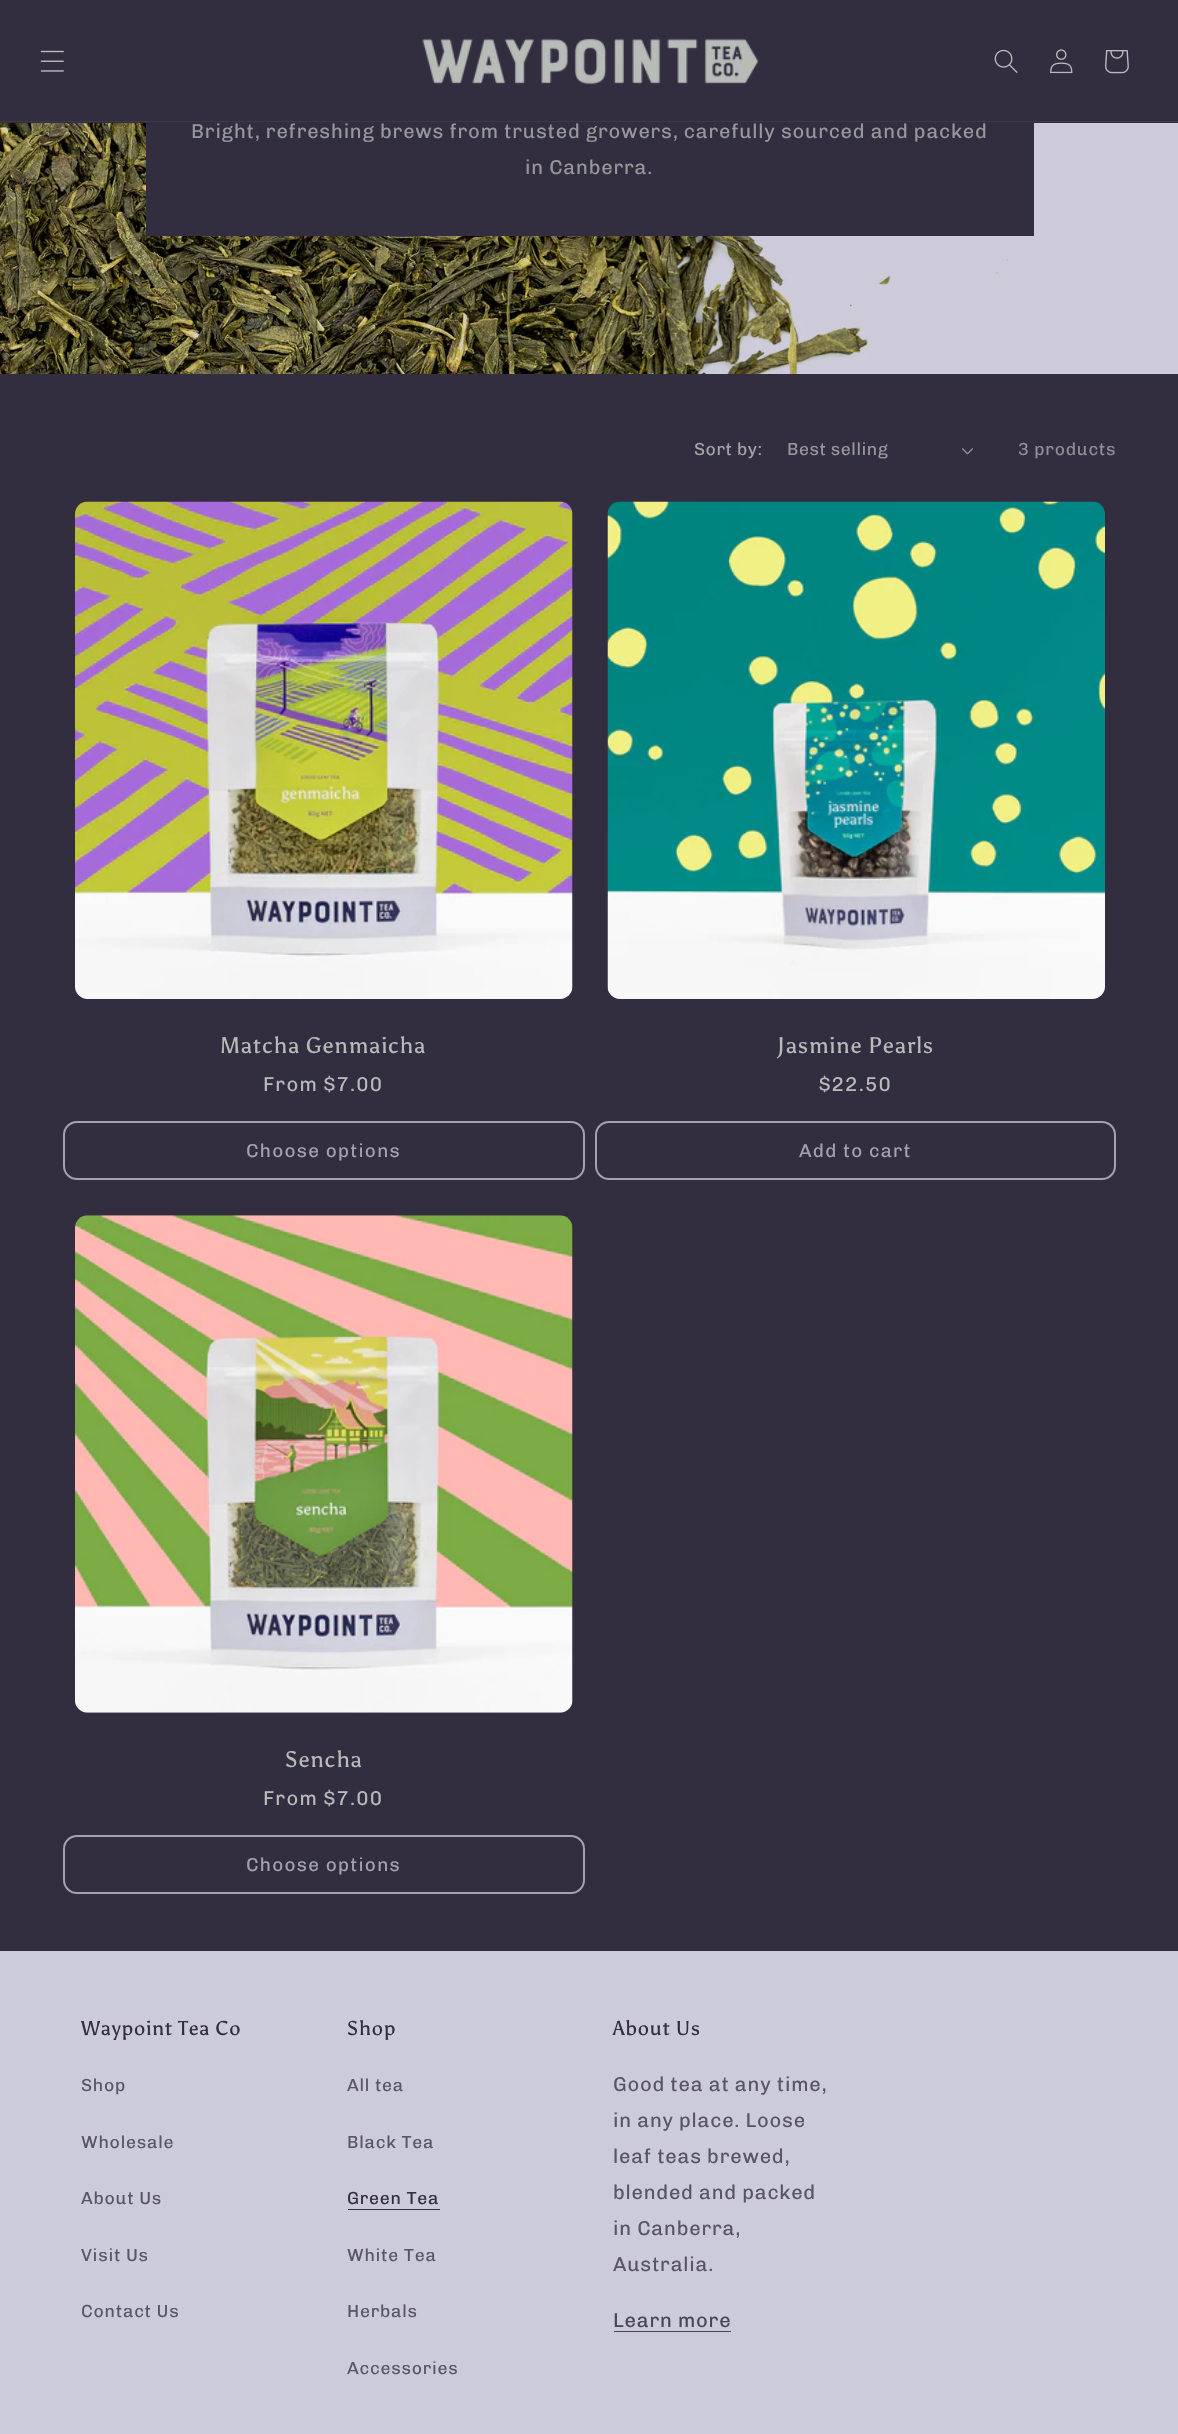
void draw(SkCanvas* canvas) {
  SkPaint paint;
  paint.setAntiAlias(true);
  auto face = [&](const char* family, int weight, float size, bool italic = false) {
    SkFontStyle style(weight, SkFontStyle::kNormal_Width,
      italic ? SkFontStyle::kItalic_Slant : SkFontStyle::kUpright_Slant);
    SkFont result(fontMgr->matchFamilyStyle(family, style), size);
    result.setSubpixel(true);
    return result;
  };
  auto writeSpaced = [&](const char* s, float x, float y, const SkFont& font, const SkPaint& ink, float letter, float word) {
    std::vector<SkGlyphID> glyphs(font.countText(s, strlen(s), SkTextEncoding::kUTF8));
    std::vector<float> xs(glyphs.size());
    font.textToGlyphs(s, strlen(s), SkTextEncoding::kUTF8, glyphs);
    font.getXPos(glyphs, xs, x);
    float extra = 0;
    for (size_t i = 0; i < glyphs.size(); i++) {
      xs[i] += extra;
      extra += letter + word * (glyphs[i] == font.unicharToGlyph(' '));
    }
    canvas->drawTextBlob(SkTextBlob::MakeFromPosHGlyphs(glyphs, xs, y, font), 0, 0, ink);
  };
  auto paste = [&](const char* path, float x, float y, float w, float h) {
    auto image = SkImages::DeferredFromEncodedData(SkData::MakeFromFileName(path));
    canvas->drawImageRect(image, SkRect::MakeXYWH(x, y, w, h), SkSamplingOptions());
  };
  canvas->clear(0xff332d40);
  paint.setColor(0xff3e384a);
  canvas->drawRect(SkRect::MakeXYWH(0, 121, 1178, 1), paint);
  paste("img/1.png", 40, 50, 24, 22);
  paste("img/2.png", 422, 38, 337, 47);
  paste("img/3.png", 994, 49, 24, 24);
  paste("img/4.png", 1050, 49, 23, 25);
  paste("img/5.png", 1105, 50, 24, 24);
  paste("img/6.png", 0, 123, 1178, 251);
  paint.setColor(0xff332d40);
  canvas->drawRect(SkRect::MakeXYWH(146, 123, 888, 113), paint);
  paste("img/7.png", 961, 448, 12, 7);
  paste("img/8.png", 75, 501, 498, 498);
  paint.setStroke(true);
  paint.setStrokeWidth(2);
  paint.setColor(0xffa2a2b0);
  canvas->drawRoundRect(SkRect::MakeXYWH(64, 1122, 520, 57), 13, 13, paint);
  paste("img/9.png", 607, 501, 498, 498);
  canvas->drawRoundRect(SkRect::MakeXYWH(596, 1122, 519, 57), 13, 13, paint);
  paste("img/10.png", 75, 1215, 498, 498);
  canvas->drawRoundRect(SkRect::MakeXYWH(64, 1836, 520, 57), 13, 13, paint);
  paint.setStroke(false);
  {
    const struct { float x, y, w, h; SkColor color; } items[] = {
      {0, 1951, 1178, 483, 0xffcccbd9},
      {348, 2209, 92, 1, 0xff332d40},
      {614, 2331, 117, 1, 0xff4a4557},
    };
    for (auto [x, y, w, h, color] : items) {
      paint.setColor(color);
      canvas->drawRect(SkRect::MakeXYWH(x, y, w, h), paint);
    }
  }
  auto f0 = face("Chivo", 400, 20);
  paint.setColor(0xff96989b);
  writeSpaced("Bright, refreshing brews from trusted growers, carefully sourced and packed", 191, 138, f0, paint, 0.75f, 0);
  writeSpaced("in Canberra.", 525, 174, f0, paint, 0.75f, 0);
  auto f1 = face("Chivo", 400, 17.5f);
  paint.setColor(0xffa3a6a7);
  writeSpaced("Sort by:", 694, 455, f1, paint, 0.5f, 0);
  paint.setColor(0xff96989b);
  writeSpaced("Best selling", 787, 455, f1, paint, 0.5f, 0);
  paint.setColor(0xff8f9095);
  writeSpaced("3 products", 1018, 455, f1, paint, 0.75f, 0);
  auto f2 = face("Asul", 400, 22.5f);
  paint.setColor(0xffb7bbb9);
  writeSpaced("Matcha Genmaicha", 220, 1053, f2, paint, 0.75f, 0);
  writeSpaced("From $7.00", 263, 1091, f0, paint, 1.25f, 0);
  auto f3 = face("Chivo", 400, 18.75f);
  paint.setColor(0xffa2a2b0);
  writeSpaced("Choose options", 246, 1157, f3, paint, 1.25f, 0);
  paint.setColor(0xffb7bbb9);
  writeSpaced("Jasmine Pearls", 777, 1053, f2, paint, 0.75f, 0);
  writeSpaced("$22.50", 819, 1091, f0, paint, 1.25f, 0);
  paint.setColor(0xffa2a2b0);
  writeSpaced("Add to cart", 799, 1157, f3, paint, 1.25f, 0);
  paint.setColor(0xffb7bbb9);
  writeSpaced("Sencha", 285, 1767, f2, paint, 0.75f, 0);
  writeSpaced("From $7.00", 263, 1805, f0, paint, 1.25f, 0);
  paint.setColor(0xffa2a2b0);
  writeSpaced("Choose options", 246, 1871, f3, paint, 1.25f, 0);
  auto f4 = face("Asul", 400, 20);
  paint.setColor(0xff332d40);
  writeSpaced("Waypoint Tea Co", 81, 2035, f4, paint, 0.75f, 0);
  paint.setColor(0xff595566);
  {
    const struct { const char* s; float x, y; } items[] = {
      {"Shop", 81, 2091},
      {"Wholesale", 81, 2148},
      {"About Us", 81, 2204},
      {"Visit Us", 81, 2261},
      {"Contact Us", 81, 2317},
    };
    for (auto [s, x, y] : items) {
      writeSpaced(s, x, y, f1, paint, 0.75f, 0);
    }
  }
  paint.setColor(0xff332d40);
  writeSpaced("Shop", 347, 2035, f4, paint, 0.75f, 0);
  paint.setColor(0xff595566);
  writeSpaced("All tea", 347, 2091, f1, paint, 0.75f, 0);
  writeSpaced("Black Tea", 347, 2148, f1, paint, 0.75f, 0);
  paint.setColor(0xff332d40);
  writeSpaced("Green Tea", 347, 2204, f1, paint, 0.75f, 0);
  paint.setColor(0xff595566);
  {
    const struct { const char* s; float x, y; } items[] = {
      {"White Tea", 347, 2261},
      {"Herbals", 347, 2317},
      {"Accessories", 347, 2374},
    };
    for (auto [s, x, y] : items) {
      writeSpaced(s, x, y, f1, paint, 0.75f, 0);
    }
  }
  paint.setColor(0xff332d40);
  writeSpaced("About Us", 613, 2035, f4, paint, 0.75f, 0);
  paint.setColor(0xff595566);
  {
    const struct { const char* s; float x, y; } items[] = {
      {"Good tea at any time,", 613, 2091},
      {"in any place. Loose", 613, 2127},
      {"leaf teas brewed,", 613, 2163},
      {"blended and packed", 613, 2199},
      {"in Canberra,", 613, 2235},
      {"Australia.", 613, 2271},
    };
    for (auto [s, x, y] : items) {
      writeSpaced(s, x, y, f0, paint, 0.75f, 0);
    }
  }
  paint.setColor(0xff4a4557);
  writeSpaced("Learn more", 613, 2327, f0, paint, 0.75f, 0);
}
